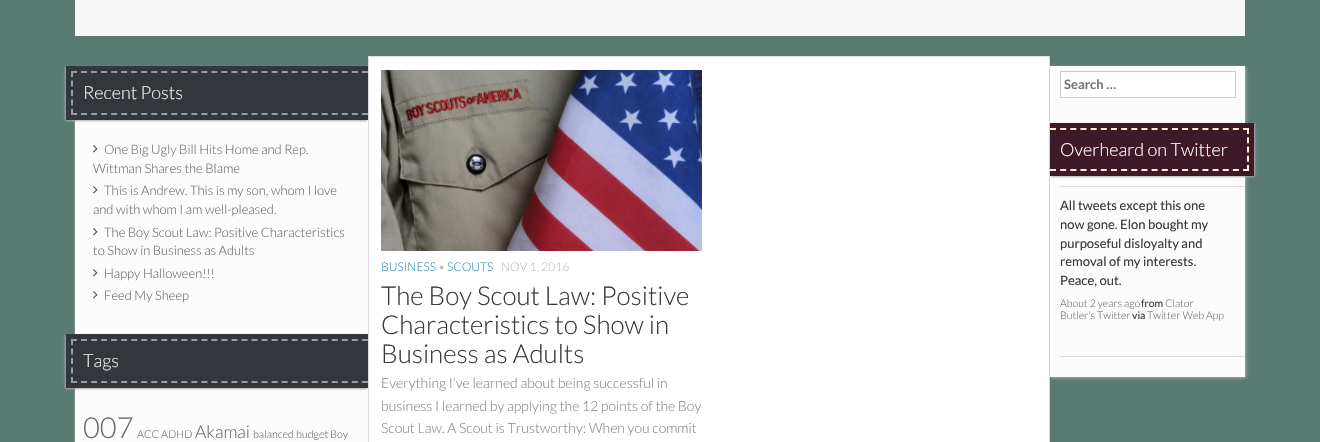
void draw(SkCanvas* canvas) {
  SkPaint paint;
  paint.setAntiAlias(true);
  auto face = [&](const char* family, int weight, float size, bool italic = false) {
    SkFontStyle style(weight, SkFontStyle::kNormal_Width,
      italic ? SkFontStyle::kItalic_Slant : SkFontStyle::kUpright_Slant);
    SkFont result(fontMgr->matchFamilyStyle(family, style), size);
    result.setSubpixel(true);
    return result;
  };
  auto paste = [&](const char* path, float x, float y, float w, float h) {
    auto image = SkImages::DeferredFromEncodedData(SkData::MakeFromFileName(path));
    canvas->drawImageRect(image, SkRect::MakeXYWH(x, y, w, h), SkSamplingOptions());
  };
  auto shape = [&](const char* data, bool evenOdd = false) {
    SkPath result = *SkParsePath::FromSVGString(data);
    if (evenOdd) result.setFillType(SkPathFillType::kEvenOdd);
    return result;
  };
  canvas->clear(0xff597a71);
  paint.setColor(0xfff7f7f7);
  canvas->drawRect(SkRect::MakeXYWH(75, 0, 1170, 36), paint);
  paint.setColor(0xffaaaaaa);
  paint.setMaskFilter(SkMaskFilter::MakeBlur(kNormal_SkBlurStyle, 1));
  canvas->drawRect(SkRect::MakeXYWH(75, 67, 293, 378), paint);
  paint.setMaskFilter(nullptr);
  paint.setColor(0xfffcfcfc);
  canvas->drawRect(SkRect::MakeXYWH(75, 120, 293, 322), paint);
  paint.setColor(0xffaaaaaa);
  paint.setMaskFilter(SkMaskFilter::MakeBlur(kNormal_SkBlurStyle, 1));
  canvas->drawRect(SkRect::MakeXYWH(65, 67, 302, 54), paint);
  paint.setMaskFilter(nullptr);
  paint.setColor(0xff33363a);
  canvas->drawRect(SkRect::MakeXYWH(66, 66, 302, 54), paint);
  paint.setStroke(true);
  paint.setStrokeWidth(2);
  paint.setColor(0xff969ca3);
  paint.setPathEffect(SkDashPathEffect::Make({{6, 4.03f}}, 0));
  canvas->drawPath(shape("M71 72H368"), paint);
  paint.setPathEffect(nullptr);
  paint.setPathEffect(SkDashPathEffect::Make({{6, 4.03f}}, 0));
  canvas->drawPath(shape("M71 114H368"), paint);
  paint.setPathEffect(nullptr);
  paint.setPathEffect(SkDashPathEffect::Make({{6, 3.5f}}, 0));
  canvas->drawPath(shape("M72 71V115"), paint);
  paint.setPathEffect(nullptr);
  paste("img/1.png", 93, 145, 5, 8);
  paste("img/1.png", 93, 186, 5, 8);
  paste("img/1.png", 93, 228, 5, 8);
  paste("img/1.png", 93, 269, 5, 8);
  paste("img/1.png", 93, 291, 5, 8);
  paint.setStroke(false);
  paint.setColor(0xffaaaaaa);
  paint.setMaskFilter(SkMaskFilter::MakeBlur(kNormal_SkBlurStyle, 1));
  canvas->drawRect(SkRect::MakeXYWH(65, 335, 302, 54), paint);
  paint.setMaskFilter(nullptr);
  paint.setColor(0xff33363a);
  canvas->drawRect(SkRect::MakeXYWH(66, 334, 302, 54), paint);
  paint.setStroke(true);
  paint.setColor(0xff969ca3);
  paint.setPathEffect(SkDashPathEffect::Make({{6, 4.03f}}, 0));
  canvas->drawPath(shape("M71 340H368"), paint);
  paint.setPathEffect(nullptr);
  paint.setPathEffect(SkDashPathEffect::Make({{6, 4.03f}}, 0));
  canvas->drawPath(shape("M71 382H368"), paint);
  paint.setPathEffect(nullptr);
  paint.setPathEffect(SkDashPathEffect::Make({{6, 3.5f}}, 0));
  canvas->drawPath(shape("M72 339V383"), paint);
  paint.setPathEffect(nullptr);
  paint.setStroke(false);
  paint.setColor(0xffffffff);
  canvas->drawRect(SkRect::MakeXYWH(368.5f, 56.5f, 681, 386), paint);
  paint.setStroke(true);
  paint.setStrokeWidth(1);
  paint.setColor(0xffdddddd);
  canvas->drawRect(SkRect::MakeXYWH(368.5f, 56.5f, 681, 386), paint);
  paste("img/2.png", 381, 70, 321, 181);
  paint.setStroke(false);
  paint.setColor(0xffaaaaaa);
  paint.setMaskFilter(SkMaskFilter::MakeBlur(kNormal_SkBlurStyle, 1.5f));
  canvas->drawRect(SkRect::MakeXYWH(1051, 67, 195, 311), paint);
  paint.setMaskFilter(nullptr);
  paint.setColor(0xfffcfcfc);
  canvas->drawRect(SkRect::MakeXYWH(1050, 66, 195, 311), paint);
  paint.setColor(0xffffffff);
  canvas->drawRect(SkRect::MakeXYWH(1060.5f, 71.5f, 175, 26), paint);
  paint.setStroke(true);
  paint.setColor(0xffcccccc);
  canvas->drawRect(SkRect::MakeXYWH(1060.5f, 71.5f, 175, 26), paint);
  paint.setStroke(false);
  paint.setColor(0xffaaaaaa);
  paint.setMaskFilter(SkMaskFilter::MakeBlur(kNormal_SkBlurStyle, 1));
  canvas->drawRect(SkRect::MakeXYWH(1051, 124, 204, 53), paint);
  paint.setMaskFilter(nullptr);
  paint.setColor(0xff3e1928);
  canvas->drawRect(SkRect::MakeXYWH(1050, 123, 204, 53), paint);
  paint.setStroke(true);
  paint.setStrokeWidth(2);
  paint.setColor(0xffffefd5);
  paint.setPathEffect(SkDashPathEffect::Make({{6, 4.16f}}, 0));
  canvas->drawPath(shape("M1050 129H1249"), paint);
  paint.setPathEffect(nullptr);
  paint.setPathEffect(SkDashPathEffect::Make({{6, 3.25f}}, 0));
  canvas->drawPath(shape("M1248 128V171"), paint);
  paint.setPathEffect(nullptr);
  paint.setPathEffect(SkDashPathEffect::Make({{6, 4.16f}}, 0));
  canvas->drawPath(shape("M1050 170H1249"), paint);
  paint.setPathEffect(nullptr);
  paint.setStroke(false);
  paint.setColor(0xffdddddd);
  canvas->drawRect(SkRect::MakeXYWH(1060, 186, 185, 1), paint);
  canvas->drawRect(SkRect::MakeXYWH(1060, 356, 185, 1), paint);
  auto f0 = face("Lato", 300, 18);
  paint.setColor(0xffeeeeee);
  canvas->drawString("Recent Posts", 83, 99, f0, paint);
  auto f1 = face("Lato", 300, 13);
  paint.setColor(0xff686868);
  {
    const struct { const char* s; float x, y; } items[] = {
      {"One Big Ugly Bill Hits Home and Rep.", 104, 154},
      {"Wittman Shares the Blame", 93, 173},
      {"This is Andrew. This is my son, whom I love", 104, 195},
      {"and with whom I am well-pleased.", 93, 214},
      {"The Boy Scout Law: Positive Characteristics", 104, 237},
      {"to Show in Business as Adults", 93, 255},
      {"Happy Halloween!!!", 104, 278},
      {"Feed My Sheep", 104, 300},
    };
    for (auto [s, x, y] : items) {
      canvas->drawString(s, x, y, f1, paint);
    }
  }
  paint.setColor(0xffeeeeee);
  canvas->drawString("Tags", 83, 367, f0, paint);
  auto f2 = face("Lato", 300, 29);
  paint.setColor(0xff686868);
  canvas->drawString("007", 83, 438, f2, paint);
  auto f3 = face("Lato", 300, 10.75f);
  canvas->drawString("ACC", 137, 438, f3, paint);
  canvas->drawString("ADHD", 161, 438, f3, paint);
  auto f4 = face("Lato", 300, 17.5f);
  canvas->drawString("Akamai", 195, 438, f4, paint);
  canvas->drawString("balanced budget", 253, 438, f3, paint);
  canvas->drawString("Boy", 330, 438, f3, paint);
  auto f5 = face("Lato", 300, 12);
  paint.setColor(0xff3a8cbb);
  canvas->drawString("BUSINESS", 381, 271, f5, paint);
  paint.setColor(0xffbbbbbb);
  canvas->drawString("•", 438, 271, f5, paint);
  paint.setColor(0xff3a8cbb);
  canvas->drawString("SCOUTS", 447, 271, f5, paint);
  paint.setColor(0xffbbbbbb);
  canvas->drawString("NOV 1, 2016", 501, 271, f5, paint);
  auto f6 = face("Lato", 300, 26);
  paint.setColor(0xff3a3a3a);
  {
    const struct { const char* s; float x, y; } items[] = {
      {"The Boy Scout Law: Positive", 381, 305},
      {"Characteristics to Show in", 381, 334},
      {"Business as Adults", 381, 363},
    };
    for (auto [s, x, y] : items) {
      canvas->drawString(s, x, y, f6, paint);
    }
  }
  auto f7 = face("Lato", 300, 14);
  paint.setColor(0xff878787);
  {
    const struct { const char* s; float x, y; } items[] = {
      {"Everything I’ve learned about being successful in", 381, 388},
      {"business I learned by applying the 12 points of the Boy", 381, 411},
      {"Scout Law. A Scout is Trustworthy: When you commit", 381, 433},
    };
    for (auto [s, x, y] : items) {
      canvas->drawString(s, x, y, f7, paint);
    }
  }
  auto f8 = face("Lato", 700, 13);
  paint.setColor(0xff757575);
  canvas->drawString("Search …", 1064, 89, f8, paint);
  paint.setColor(0xffffffff);
  canvas->drawString("Overheard on Twitter", 1060, 156, f0, paint);
  auto f9 = face("Lato", 400, 13);
  paint.setColor(0xff3a3a3a);
  {
    const struct { const char* s; float x, y; } items[] = {
      {"All tweets except this one", 1060, 210},
      {"now gone. Elon bought my", 1060, 229},
      {"purposeful disloyalty and", 1060, 248},
      {"removal of my interests.", 1060, 266},
      {"Peace, out.", 1060, 285},
    };
    for (auto [s, x, y] : items) {
      canvas->drawString(s, x, y, f9, paint);
    }
  }
  auto f10 = face("Lato", 300, 10.5f);
  paint.setColor(0xff686868);
  canvas->drawString("About 2 years ago", 1060, 307, f10, paint);
  auto f11 = face("Lato", 400, 10.5f);
  paint.setColor(0xff3a3a3a);
  canvas->drawString("from", 1141, 307, f11, paint);
  paint.setColor(0xff686868);
  canvas->drawString("Clator", 1165, 307, f10, paint);
  canvas->drawString("Butler's Twitter", 1060, 319, f10, paint);
  paint.setColor(0xff3a3a3a);
  canvas->drawString("via", 1132, 319, f11, paint);
  paint.setColor(0xff686868);
  canvas->drawString("Twitter Web App", 1147, 319, f10, paint);
}
